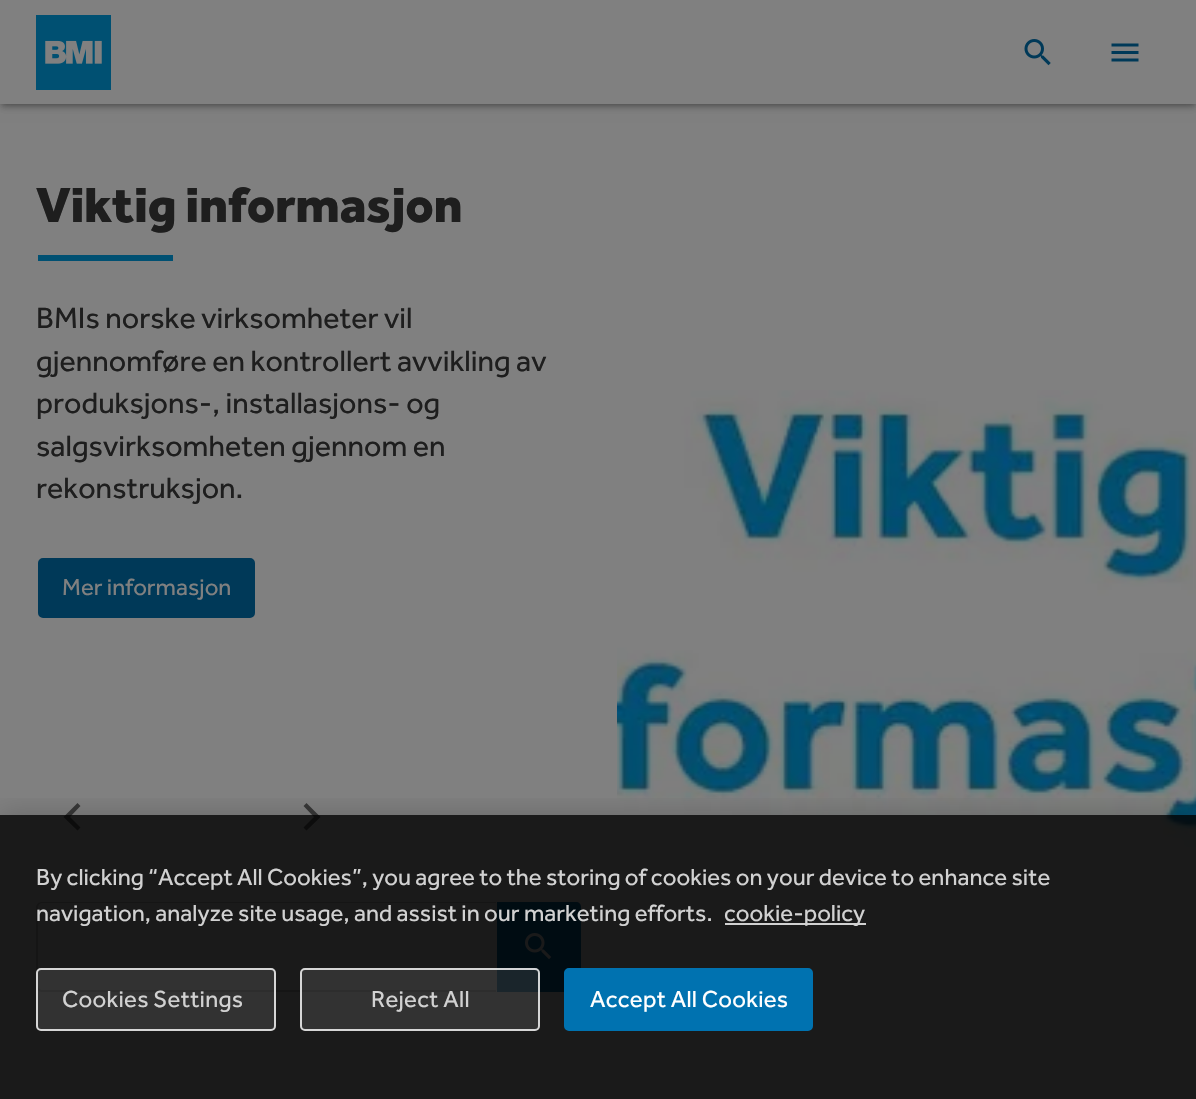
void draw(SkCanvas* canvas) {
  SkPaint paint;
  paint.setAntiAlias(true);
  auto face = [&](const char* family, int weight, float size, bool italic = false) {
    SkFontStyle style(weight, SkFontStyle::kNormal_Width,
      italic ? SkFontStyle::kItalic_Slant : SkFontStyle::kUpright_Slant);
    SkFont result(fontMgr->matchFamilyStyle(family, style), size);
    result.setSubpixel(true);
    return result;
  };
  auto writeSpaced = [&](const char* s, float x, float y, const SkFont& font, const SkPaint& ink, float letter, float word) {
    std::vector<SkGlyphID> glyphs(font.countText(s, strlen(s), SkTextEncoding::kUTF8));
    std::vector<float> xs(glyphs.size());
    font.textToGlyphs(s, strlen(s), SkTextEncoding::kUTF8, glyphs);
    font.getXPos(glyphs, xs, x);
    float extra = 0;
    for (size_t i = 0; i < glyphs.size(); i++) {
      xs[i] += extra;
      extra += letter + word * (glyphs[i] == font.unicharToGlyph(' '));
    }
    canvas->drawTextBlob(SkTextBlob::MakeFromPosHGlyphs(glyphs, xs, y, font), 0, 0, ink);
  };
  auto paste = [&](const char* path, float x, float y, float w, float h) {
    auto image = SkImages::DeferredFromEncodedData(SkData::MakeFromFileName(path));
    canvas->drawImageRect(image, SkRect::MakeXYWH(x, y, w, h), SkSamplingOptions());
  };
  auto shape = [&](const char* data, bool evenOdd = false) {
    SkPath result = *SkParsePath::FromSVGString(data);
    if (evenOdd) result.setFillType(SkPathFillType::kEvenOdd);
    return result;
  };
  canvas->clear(0xff808080);
  paint.setColor(0x1f000000);
  paint.setMaskFilter(SkMaskFilter::MakeBlur(kNormal_SkBlurStyle, 6));
  canvas->drawRect(SkRect::MakeXYWH(0, 2, 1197, 103), paint);
  paint.setMaskFilter(nullptr);
  paint.setColor(0x24000000);
  paint.setMaskFilter(SkMaskFilter::MakeBlur(kNormal_SkBlurStyle, 3));
  canvas->drawRect(SkRect::MakeXYWH(0, 5, 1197, 103), paint);
  paint.setMaskFilter(nullptr);
  paint.setColor(0x33000000);
  paint.setMaskFilter(SkMaskFilter::MakeBlur(kNormal_SkBlurStyle, 2));
  canvas->drawRect(SkRect::MakeXYWH(3, 8, 1191, 97), paint);
  paint.setMaskFilter(nullptr);
  paint.setColor(0xff808080);
  canvas->drawRect(SkRect::MakeXYWH(0, 0, 1196, 104), paint);
  paste("img/1.png", 36, 15, 75, 75);
  paste("img/2.png", 1024, 39, 27, 27);
  paste("img/3.png", 1111, 43, 28, 19);
  paint.setColor(0xff005072);
  canvas->drawRect(SkRect::MakeXYWH(38, 255, 135, 6), paint);
  paint.setColor(0xff003958);
  canvas->drawRoundRect(SkRect::MakeXYWH(39, 559, 215, 58), 4, 4, paint);
  paint.setStroke(true);
  paint.setStrokeWidth(2);
  canvas->drawRoundRect(SkRect::MakeXYWH(39, 559, 215, 58), 4, 4, paint);
  paint.setStroke(false);
  paint.setColor(0xff383838);
  canvas->drawPath(shape("M80.5 827.5L70 817L80.5 806L77.5 803L63.5 817L77.5 830.5Z"), paint);
  canvas->drawPath(shape("M303.5 827.5L314 817L303.5 806L306.5 803L320.5 817L306.5 830.5Z"), paint);
  paint.setColor(0xff666666);
  canvas->drawPath(shape("M42 902H496V992H42C39 992 36 989 36 986V908C36 904 39 902 42 902ZM42 903H496V990H42C40 990 38 988 38 986V908C38 905 40 903 42 903Z", true), paint);
  paint.setColor(0xff003958);
  canvas->drawPath(shape("M497 902H576C579 902 581 904 581 907V987C581 990 579 992 576 992H497Z"), paint);
  paste("img/4.png", 525, 933, 27, 27);
  paste("img/5.png", 617, 390, 579, 457);
  canvas->save();
  canvas->clipRect(SkRect::MakeXYWH(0, 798, 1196, 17));
  paint.setColor(0x33000000);
  paint.setMaskFilter(SkMaskFilter::MakeBlur(kNormal_SkBlurStyle, 13.5f));
  canvas->drawRect(SkRect::MakeXYWH(0, 815, 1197, 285), paint);
  paint.setMaskFilter(nullptr);
  canvas->restore();
  paint.setColor(0xcc000000);
  canvas->drawRect(SkRect::MakeXYWH(0, 815, 1196, 284), paint);
  paint.setColor(0xffd1d1d1);
  canvas->drawRect(SkRect::MakeXYWH(725, 923, 141, 2), paint);
  paint.setColor(0x1affffff);
  canvas->drawRoundRect(SkRect::MakeXYWH(36, 968, 240, 63), 5, 5, paint);
  paint.setStroke(true);
  paint.setColor(0xccffffff);
  canvas->drawRoundRect(SkRect::MakeXYWH(37, 969, 238, 61), 4, 4, paint);
  paint.setStroke(false);
  paint.setColor(0x1affffff);
  canvas->drawRoundRect(SkRect::MakeXYWH(300, 968, 240, 63), 5, 5, paint);
  paint.setStroke(true);
  paint.setColor(0xccffffff);
  canvas->drawRoundRect(SkRect::MakeXYWH(301, 969, 238, 61), 4, 4, paint);
  paint.setStroke(false);
  paint.setColor(0xff0072b0);
  canvas->drawRoundRect(SkRect::MakeXYWH(565, 969, 247, 61), 4, 4, paint);
  paint.setStroke(true);
  canvas->drawRoundRect(SkRect::MakeXYWH(565, 969, 247, 61), 4, 4, paint);
  auto f0 = face("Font", 900, 51);
  paint.setStroke(false);
  paint.setColor(0xff1e1e1e);
  writeSpaced("Viktig informasjon", 36, 222, f0, paint, -0.25f, 0);
  auto f1 = face("Font", 400, 30.4f);
  {
    const struct { const char* s; float x, y; } items[] = {
      {"BMIs norske virksomheter vil", 36, 328},
      {"gjennomføre en kontrollert avvikling av", 36, 371},
      {"produksjons-, installasjons- og", 36, 413},
      {"salgsvirksomheten gjennom en", 36, 456},
      {"rekonstruksjon.", 36, 498},
    };
    for (auto [s, x, y] : items) {
      canvas->drawString(s, x, y, f1, paint);
    }
  }
  auto f2 = face("Font", 400, 24);
  paint.setColor(0xff808080);
  canvas->drawString("Mer informasjon", 62, 595, f2, paint);
  paint.setColor(0xffd1d1d1);
  {
    const struct { const char* s; float x, y; } items[] = {
      {"By clicking “Accept All Cookies”, you agree to the storing of cookies on your device to enhance site", 36, 885},
      {"navigation, analyze site usage, and assist in our marketing efforts.", 36, 921},
      {"cookie-policy", 724, 921},
    };
    for (auto [s, x, y] : items) {
      canvas->drawString(s, x, y, f2, paint);
    }
  }
  writeSpaced("Cookies Settings", 62, 1007, f2, paint, 0.25f, 0);
  writeSpaced("Reject All", 371, 1007, f2, paint, 0.25f, 0);
  paint.setColor(0xffffffff);
  writeSpaced("Accept All Cookies", 590, 1007, f2, paint, 0.25f, 0);
}
